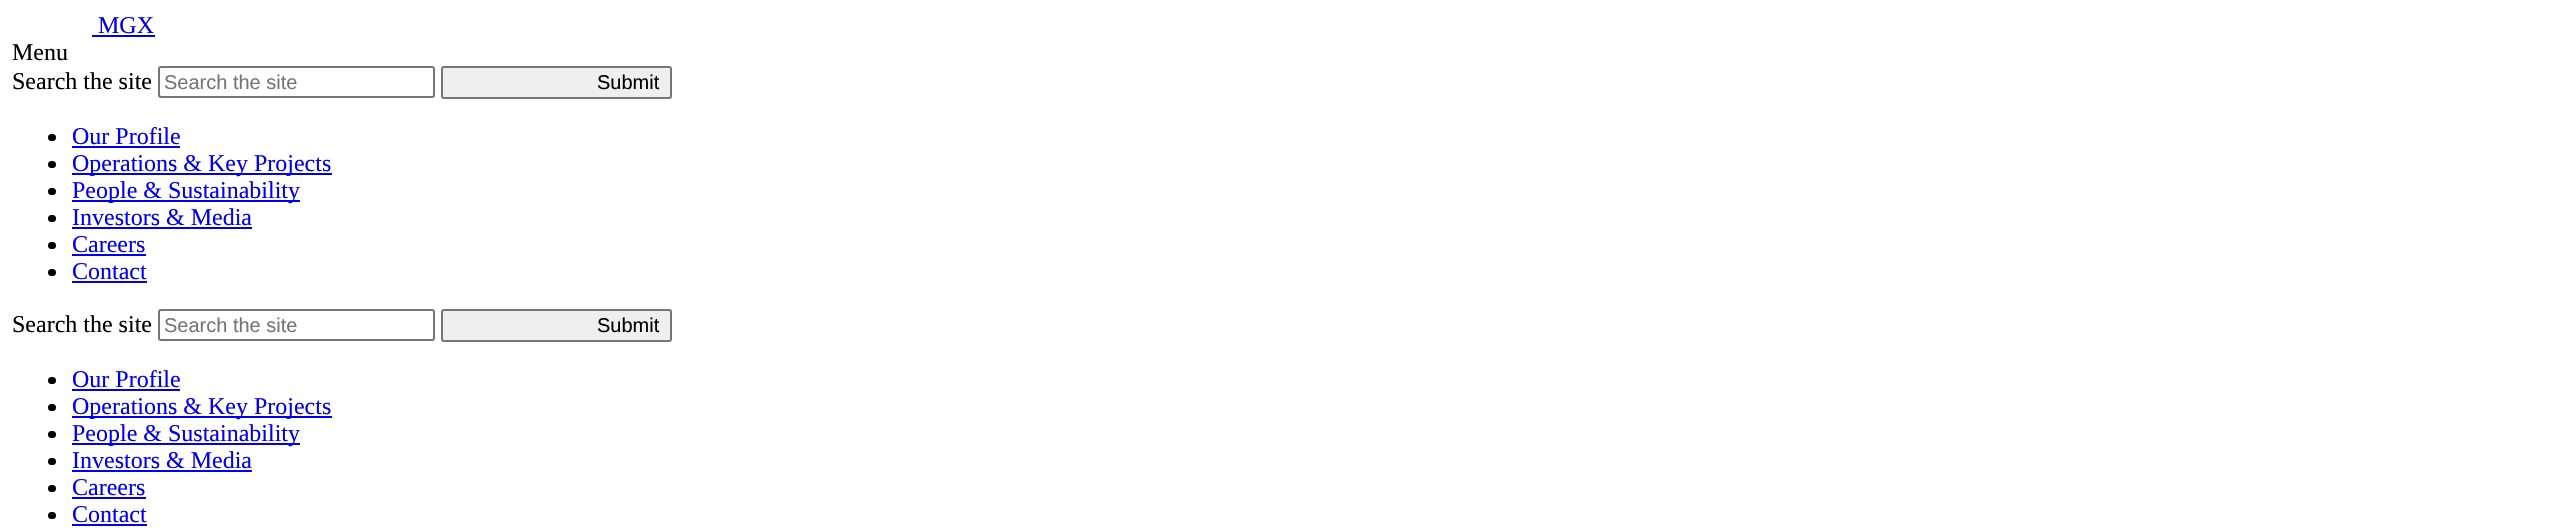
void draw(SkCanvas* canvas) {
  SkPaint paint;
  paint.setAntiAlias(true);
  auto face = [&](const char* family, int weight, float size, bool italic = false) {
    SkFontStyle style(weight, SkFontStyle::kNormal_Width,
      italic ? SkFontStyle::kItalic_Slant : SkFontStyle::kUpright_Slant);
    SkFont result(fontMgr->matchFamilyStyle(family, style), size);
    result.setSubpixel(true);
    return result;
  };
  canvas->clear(0xffffffff);
  paint.setColor(0xff0000ee);
  canvas->drawRect(SkRect::MakeXYWH(92, 35, 63, 2), paint);
  paint.setStroke(true);
  paint.setStrokeWidth(2);
  paint.setColor(0xff767676);
  canvas->drawRoundRect(SkRect::MakeXYWH(159, 67, 275, 30), 2, 2, paint);
  paint.setStroke(false);
  paint.setColor(0xffefefef);
  canvas->drawRoundRect(SkRect::MakeXYWH(442, 67, 229, 31), 2, 2, paint);
  paint.setStroke(true);
  paint.setColor(0xff767676);
  canvas->drawRoundRect(SkRect::MakeXYWH(442, 67, 229, 31), 2, 2, paint);
  paint.setStroke(false);
  paint.setColor(0xff000000);
  canvas->drawRoundRect(SkRect::MakeXYWH(48, 134, 8, 7), 3.5f, 3.5f, paint);
  paint.setColor(0xff0000ee);
  canvas->drawRect(SkRect::MakeXYWH(72, 146, 108, 2), paint);
  paint.setColor(0xff000000);
  canvas->drawRoundRect(SkRect::MakeXYWH(48, 161, 8, 7), 3.5f, 3.5f, paint);
  paint.setColor(0xff0000ee);
  canvas->drawRect(SkRect::MakeXYWH(72, 173, 260, 2), paint);
  paint.setColor(0xff000000);
  canvas->drawRoundRect(SkRect::MakeXYWH(48, 188, 8, 7), 3.5f, 3.5f, paint);
  paint.setColor(0xff0000ee);
  canvas->drawRect(SkRect::MakeXYWH(72, 200, 228, 2), paint);
  paint.setColor(0xff000000);
  canvas->drawRoundRect(SkRect::MakeXYWH(48, 215, 8, 7), 3.5f, 3.5f, paint);
  paint.setColor(0xff0000ee);
  canvas->drawRect(SkRect::MakeXYWH(72, 227, 180, 2), paint);
  paint.setColor(0xff000000);
  canvas->drawRoundRect(SkRect::MakeXYWH(48, 242, 8, 7), 3.5f, 3.5f, paint);
  paint.setColor(0xff0000ee);
  canvas->drawRect(SkRect::MakeXYWH(72, 254, 74, 2), paint);
  paint.setColor(0xff000000);
  canvas->drawRoundRect(SkRect::MakeXYWH(48, 269, 8, 7), 3.5f, 3.5f, paint);
  paint.setColor(0xff0000ee);
  canvas->drawRect(SkRect::MakeXYWH(72, 281, 75, 2), paint);
  paint.setStroke(true);
  paint.setColor(0xff767676);
  canvas->drawRoundRect(SkRect::MakeXYWH(159, 310, 275, 30), 2, 2, paint);
  paint.setStroke(false);
  paint.setColor(0xffefefef);
  canvas->drawRoundRect(SkRect::MakeXYWH(442, 310, 229, 31), 2, 2, paint);
  paint.setStroke(true);
  paint.setColor(0xff767676);
  canvas->drawRoundRect(SkRect::MakeXYWH(442, 310, 229, 31), 2, 2, paint);
  paint.setStroke(false);
  paint.setColor(0xff000000);
  canvas->drawRoundRect(SkRect::MakeXYWH(48, 377, 8, 7), 3.5f, 3.5f, paint);
  paint.setColor(0xff0000ee);
  canvas->drawRect(SkRect::MakeXYWH(72, 389, 108, 2), paint);
  paint.setColor(0xff000000);
  canvas->drawRoundRect(SkRect::MakeXYWH(48, 404, 8, 7), 3.5f, 3.5f, paint);
  paint.setColor(0xff0000ee);
  canvas->drawRect(SkRect::MakeXYWH(72, 416, 260, 2), paint);
  paint.setColor(0xff000000);
  canvas->drawRoundRect(SkRect::MakeXYWH(48, 431, 8, 7), 3.5f, 3.5f, paint);
  paint.setColor(0xff0000ee);
  canvas->drawRect(SkRect::MakeXYWH(72, 443, 228, 2), paint);
  paint.setColor(0xff000000);
  canvas->drawRoundRect(SkRect::MakeXYWH(48, 458, 8, 7), 3.5f, 3.5f, paint);
  paint.setColor(0xff0000ee);
  canvas->drawRect(SkRect::MakeXYWH(72, 470, 180, 2), paint);
  paint.setColor(0xff000000);
  canvas->drawRoundRect(SkRect::MakeXYWH(48, 485, 8, 7), 3.5f, 3.5f, paint);
  paint.setColor(0xff0000ee);
  canvas->drawRect(SkRect::MakeXYWH(72, 497, 74, 2), paint);
  paint.setColor(0xff000000);
  canvas->drawRoundRect(SkRect::MakeXYWH(48, 512, 8, 7), 3.5f, 3.5f, paint);
  paint.setColor(0xff0000ee);
  canvas->drawRect(SkRect::MakeXYWH(72, 524, 75, 2), paint);
  auto f0 = face("Liberation Serif", 400, 24);
  canvas->drawString("MGX", 98, 33, f0, paint);
  paint.setColor(0xff000000);
  canvas->drawString("Menu", 12, 60, f0, paint);
  canvas->drawString("Search the site", 12, 89, f0, paint);
  auto f1 = face("Liberation Sans", 400, 20);
  paint.setColor(0xff757575);
  canvas->drawString("Search the site", 164, 89, f1, paint);
  paint.setColor(0xff000000);
  canvas->drawString("Submit", 597, 89, f1, paint);
  paint.setColor(0xff0000ee);
  {
    const struct { const char* s; float x, y; } items[] = {
      {"Our Profile", 72, 144},
      {"Operations & Key Projects", 72, 171},
      {"People & Sustainability", 72, 198},
      {"Investors & Media", 72, 225},
      {"Careers", 72, 252},
      {"Contact", 72, 279},
    };
    for (auto [s, x, y] : items) {
      canvas->drawString(s, x, y, f0, paint);
    }
  }
  paint.setColor(0xff000000);
  canvas->drawString("Search the site", 12, 332, f0, paint);
  paint.setColor(0xff757575);
  canvas->drawString("Search the site", 164, 332, f1, paint);
  paint.setColor(0xff000000);
  canvas->drawString("Submit", 597, 332, f1, paint);
  paint.setColor(0xff0000ee);
  {
    const struct { const char* s; float x, y; } items[] = {
      {"Our Profile", 72, 387},
      {"Operations & Key Projects", 72, 414},
      {"People & Sustainability", 72, 441},
      {"Investors & Media", 72, 468},
      {"Careers", 72, 495},
      {"Contact", 72, 522},
    };
    for (auto [s, x, y] : items) {
      canvas->drawString(s, x, y, f0, paint);
    }
  }
}
